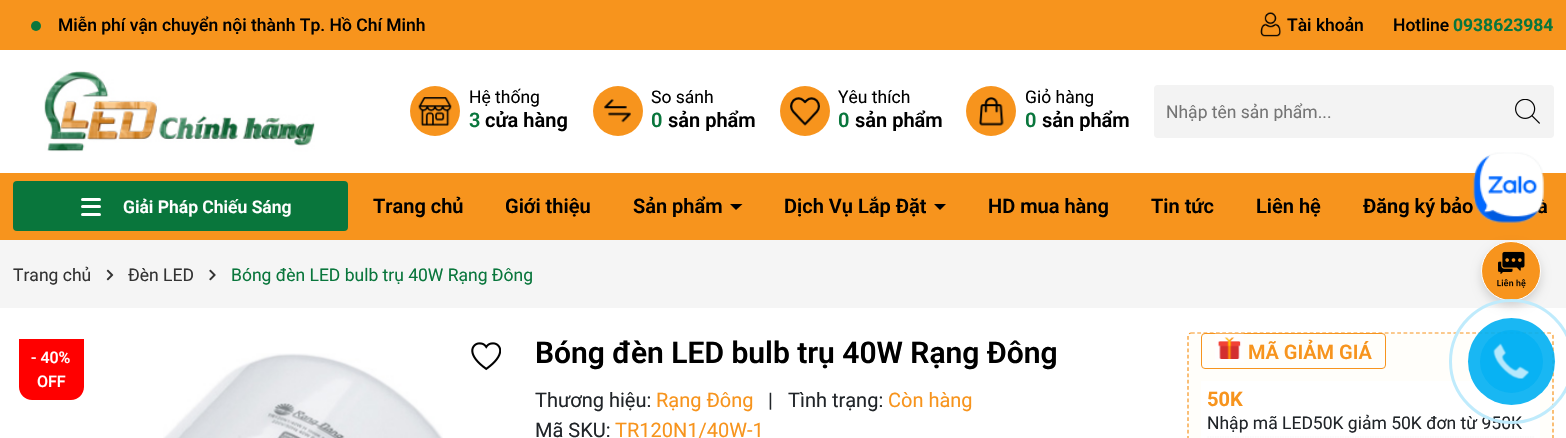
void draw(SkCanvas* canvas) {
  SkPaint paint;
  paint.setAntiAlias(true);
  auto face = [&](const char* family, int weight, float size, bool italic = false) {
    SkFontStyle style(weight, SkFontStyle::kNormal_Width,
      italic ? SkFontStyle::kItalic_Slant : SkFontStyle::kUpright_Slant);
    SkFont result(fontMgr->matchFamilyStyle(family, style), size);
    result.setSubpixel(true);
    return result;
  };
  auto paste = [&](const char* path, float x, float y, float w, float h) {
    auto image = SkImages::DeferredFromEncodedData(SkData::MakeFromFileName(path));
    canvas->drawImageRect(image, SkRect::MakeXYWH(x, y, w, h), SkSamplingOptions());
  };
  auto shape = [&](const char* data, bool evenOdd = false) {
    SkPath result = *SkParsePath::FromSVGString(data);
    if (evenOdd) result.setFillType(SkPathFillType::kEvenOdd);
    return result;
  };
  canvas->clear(0xffffffff);
  paint.setColor(0xfff7941d);
  canvas->drawRect(SkRect::MakeXYWH(0, 0, 1566, 50), paint);
  paint.setColor(0xff09763c);
  canvas->drawCircle(36, 26, 5, paint);
  paste("img/1.png", 1260, 12, 21, 25);
  paste("img/2.png", 44, 71, 271, 81);
  paint.setColor(0xfff7941d);
  canvas->drawCircle(435, 111, 25, paint);
  paste("img/3.png", 418, 97, 34, 29);
  canvas->drawCircle(618, 111, 25, paint);
  paste("img/4.png", 604, 99, 27, 24);
  canvas->drawCircle(805, 111, 25, paint);
  paste("img/5.png", 790, 97, 30, 29);
  canvas->drawCircle(991, 111, 25, paint);
  paste("img/6.png", 979, 97, 25, 29);
  paint.setColor(0xfff3f3f3);
  canvas->drawRoundRect(SkRect::MakeXYWH(1154, 85, 400, 53), 4, 4, paint);
  paste("img/7.png", 1515, 99, 25, 25);
  paint.setColor(0xfff7941d);
  canvas->drawRect(SkRect::MakeXYWH(0, 173, 1566, 67), paint);
  paint.setColor(0xff09763c);
  canvas->drawRoundRect(SkRect::MakeXYWH(13, 181, 335, 50), 4, 4, paint);
  paint.setColor(0xffffffff);
  canvas->drawRoundRect(SkRect::MakeXYWH(81, 205, 20, 3), 1.5f, 1.5f, paint);
  canvas->drawRoundRect(SkRect::MakeXYWH(81, 198, 20, 3), 1.5f, 1.5f, paint);
  canvas->drawRoundRect(SkRect::MakeXYWH(81, 213, 20, 3), 1.5f, 1.5f, paint);
  paint.setColor(0xff000000);
  canvas->drawPath(shape("M730 204H742.5L736 210Z"), paint);
  canvas->drawPath(shape("M934 204H946L940 210Z"), paint);
  paint.setColor(0xfff5f5f5);
  canvas->drawRect(SkRect::MakeXYWH(0, 240, 1566, 68), paint);
  paint.setColor(0x26000000);
  paint.setMaskFilter(SkMaskFilter::MakeBlur(kNormal_SkBlurStyle, 5));
  canvas->drawRoundRect(SkRect::MakeXYWH(1481, 246, 60, 60), 30, 30, paint);
  paint.setMaskFilter(nullptr);
  paint.setColor(0xfff7941d);
  canvas->drawCircle(1511, 271, 29.5f, paint);
  paint.setStroke(true);
  paint.setStrokeWidth(1);
  paint.setColor(0xffffffff);
  canvas->drawCircle(1511, 271, 29.5f, paint);
  paste("img/9.png", 1497, 251, 29, 37);
  paste("img/10.png", 106, 269, 8, 12);
  paste("img/11.png", 209, 269, 7, 12);
  paint.setStroke(false);
  paint.setColor(0xffff0000);
  canvas->drawPath(shape("M19 339H84V387C84 394 78 400 71 400H32C25 400 19 394 19 387Z"), paint);
  paste("img/12.png", 163, 353, 280, 85);
  paste("img/13.png", 471, 342, 30, 29);
  paint.setColor(0xfffffefa);
  canvas->drawRoundRect(SkRect::MakeXYWH(1188, 333, 366, 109), 4, 4, paint);
  paint.setStroke(true);
  paint.setStrokeWidth(1.2f);
  paint.setColor(0xfff7941d);
  paint.setPathEffect(SkDashPathEffect::Make({{3.75f, 2.5f}}, 0));
  canvas->drawPath(shape("M1191 333H1550C1551.5 333 1553 334.5 1553 336V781C1553 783 1551.5 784.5 1550 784.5H1191C1189.5 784.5 1188 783 1188 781V336C1188 334.5 1189.5 333 1191 333Z"), paint);
  paint.setPathEffect(nullptr);
  paint.setStrokeWidth(1);
  canvas->drawRoundRect(SkRect::MakeXYWH(1201.5f, 333.5f, 184, 35), 3.5f, 3.5f, paint);
  paste("img/14.png", 1215, 333, 29, 30);
  paint.setStroke(false);
  paint.setColor(0xffffffff);
  canvas->drawRect(SkRect::MakeXYWH(1201, 381, 339, 57), paint);
  paint.setStroke(true);
  paint.setStrokeWidth(1.2f);
  paint.setColor(0xfff5f5f5);
  paint.setPathEffect(SkDashPathEffect::Make({{1.25f, 1.25f}}, 0));
  canvas->drawPath(shape("M1207.5 437H1534"), paint);
  paint.setPathEffect(nullptr);
  auto f0 = face("Roboto", 500, 17.5f);
  paint.setStroke(false);
  paint.setColor(0xff000000);
  {
    const struct { const char* s; float x, y; } items[] = {
      {"Miễn phí vận chuyển nội thành Tp. Hồ Chí Minh", 58, 31},
      {"Tài khoản", 1287, 31},
      {"Hotline", 1393, 31},
    };
    for (auto [s, x, y] : items) {
      canvas->drawString(s, x, y, f0, paint);
    }
  }
  auto f1 = face("Roboto", 700, 17.5f);
  paint.setColor(0xff09763c);
  canvas->drawString("0938623984", 1453, 31, f1, paint);
  auto f2 = face("Roboto", 400, 17.5f);
  paint.setColor(0xff000000);
  canvas->drawString("Hệ thống", 469, 103, f2, paint);
  auto f3 = face("Roboto", 600, 20);
  paint.setColor(0xff09763c);
  canvas->drawString("3", 469, 127, f3, paint);
  paint.setColor(0xff000000);
  canvas->drawString("cửa hàng", 485, 127, f3, paint);
  canvas->drawString("So sánh", 651, 103, f2, paint);
  paint.setColor(0xff09763c);
  canvas->drawString("0", 651, 127, f3, paint);
  paint.setColor(0xff000000);
  canvas->drawString("sản phẩm", 668, 127, f3, paint);
  canvas->drawString("Yêu thích", 838, 103, f2, paint);
  paint.setColor(0xff09763c);
  canvas->drawString("0", 838, 127, f3, paint);
  paint.setColor(0xff000000);
  canvas->drawString("sản phẩm", 855, 127, f3, paint);
  canvas->drawString("Giỏ hàng", 1025, 103, f2, paint);
  paint.setColor(0xff09763c);
  canvas->drawString("0", 1025, 127, f3, paint);
  paint.setColor(0xff000000);
  canvas->drawString("sản phẩm", 1042, 127, f3, paint);
  canvas->save();
  canvas->clipRect(SkRect::MakeXYWH(1166, 101, 335, 20));
  paint.setColor(0xff757575);
  canvas->drawString("Nhập tên sản phẩm...", 1166, 118, f2, paint);
  canvas->restore();
  auto f4 = face("Roboto", 600, 17.5f);
  paint.setColor(0xffffffff);
  canvas->drawString("Giải Pháp Chiếu Sáng", 123, 213, f4, paint);
  paint.setColor(0xff000000);
  {
    const struct { const char* s; float x, y; } items[] = {
      {"Trang chủ", 373, 213},
      {"Giới thiệu", 505, 213},
      {"Sản phẩm", 633, 213},
      {"Dịch Vụ Lắp Đặt", 784, 213},
      {"HD mua hàng", 988, 213},
      {"Tin tức", 1151, 213},
      {"Liên hệ", 1256, 213},
      {"Đăng ký bảo", 1363, 213},
      {"à", 1537, 213},
    };
    for (auto [s, x, y] : items) {
      canvas->drawString(s, x, y, f3, paint);
    }
  }
  paste("img/8.png", 1472, 152, 73, 72);
  paint.setColor(0xff333333);
  canvas->drawString("Trang chủ", 13, 281, f2, paint);
  canvas->drawString("Đèn LED", 128, 281, f2, paint);
  paint.setColor(0xff09763c);
  canvas->drawString("Bóng đèn LED bulb trụ 40W Rạng Đông", 231, 281, f2, paint);
  auto f5 = face("Roboto", 500, 16);
  paint.setColor(0xffffffff);
  canvas->drawString("- 40%", 31, 363, f5, paint);
  canvas->drawString("OFF", 37, 387, f5, paint);
  auto f6 = face("Roboto", 600, 30);
  paint.setColor(0xff000000);
  canvas->drawString("Bóng đèn LED bulb trụ 40W Rạng Đông", 535, 363, f6, paint);
  auto f7 = face("Roboto", 400, 20);
  paint.setColor(0xff212529);
  canvas->drawString("Thương hiệu:", 535, 407, f7, paint);
  paint.setColor(0xfff7941d);
  canvas->drawString("Rạng Đông", 656, 407, f7, paint);
  paint.setColor(0xff212529);
  canvas->drawString("|", 768, 407, f7, paint);
  canvas->drawString("Tình trạng:", 788, 407, f7, paint);
  paint.setColor(0xfff7941d);
  canvas->drawString("Còn hàng", 888, 407, f7, paint);
  paint.setColor(0xff212529);
  canvas->drawString("Mã SKU:", 535, 437, f7, paint);
  paint.setColor(0xfff7941d);
  canvas->drawString("TR120N1/40W-1", 615, 437, f7, paint);
  canvas->drawString("MÃ GIẢM GIÁ", 1248, 359, f3, paint);
  auto f8 = face("Roboto", 700, 20);
  canvas->drawString("50K", 1207, 406, f8, paint);
  paint.setColor(0xff212529);
  canvas->drawString("Nhập mã LED50K giảm 50K đơn từ 950K", 1207, 429, f2, paint);
  paint.setStroke(true);
  paint.setStrokeWidth(3);
  paint.setColor(0xffbfebfc);
  canvas->drawCircle(1511.5f, 361.5f, 61, paint);
  paint.setStroke(false);
  paint.setColor(0xe600aff2);
  canvas->drawCircle(1511.5f, 361.5f, 43.5f, paint);
  paint.setColor(0xb300aff2);
  canvas->drawCircle(1511.5f, 361.5f, 31.5f, paint);
  paste("img/15.png", 1493, 343, 36, 36);
}
